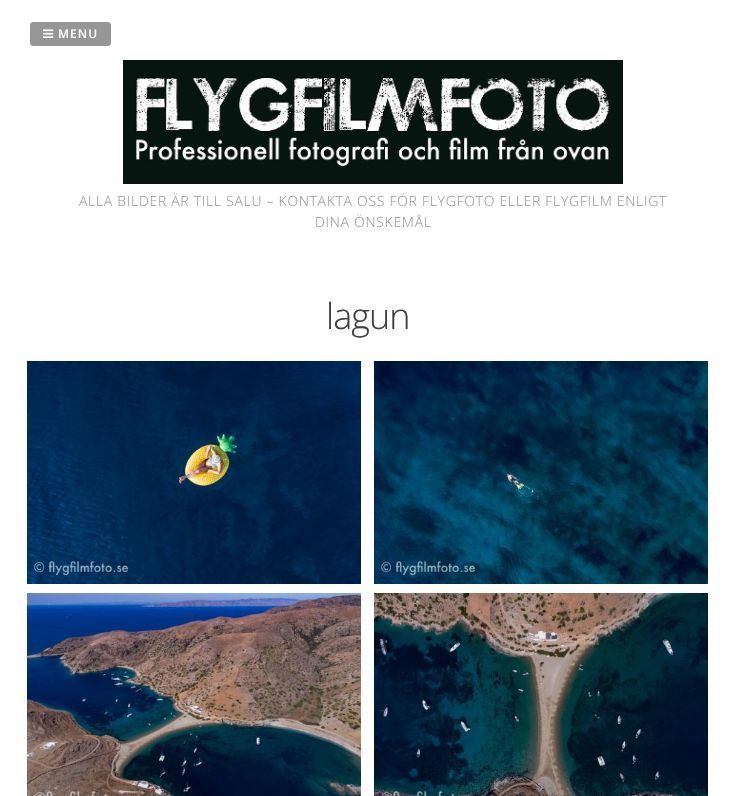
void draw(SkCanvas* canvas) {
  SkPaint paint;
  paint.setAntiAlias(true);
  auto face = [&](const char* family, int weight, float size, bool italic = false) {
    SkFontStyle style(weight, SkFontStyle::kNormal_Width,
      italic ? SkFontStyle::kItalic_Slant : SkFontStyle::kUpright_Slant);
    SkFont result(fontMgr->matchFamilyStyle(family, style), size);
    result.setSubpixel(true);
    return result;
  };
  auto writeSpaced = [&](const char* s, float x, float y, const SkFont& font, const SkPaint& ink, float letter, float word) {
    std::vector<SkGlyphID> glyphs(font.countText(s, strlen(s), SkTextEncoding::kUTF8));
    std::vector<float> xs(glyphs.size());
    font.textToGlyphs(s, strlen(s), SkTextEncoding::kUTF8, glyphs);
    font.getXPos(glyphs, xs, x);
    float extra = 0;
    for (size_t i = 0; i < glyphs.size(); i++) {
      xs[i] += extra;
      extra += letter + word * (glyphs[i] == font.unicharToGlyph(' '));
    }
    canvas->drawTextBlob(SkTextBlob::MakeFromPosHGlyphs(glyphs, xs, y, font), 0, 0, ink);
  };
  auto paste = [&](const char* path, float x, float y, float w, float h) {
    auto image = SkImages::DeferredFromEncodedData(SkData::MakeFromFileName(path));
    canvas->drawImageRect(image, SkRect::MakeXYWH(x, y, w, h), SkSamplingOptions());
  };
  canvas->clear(0xffffffff);
  paint.setColor(0xff969696);
  canvas->drawRoundRect(SkRect::MakeXYWH(30.5f, 22.5f, 80, 23), 2.5f, 2.5f, paint);
  paint.setStroke(true);
  paint.setStrokeWidth(1);
  canvas->drawRoundRect(SkRect::MakeXYWH(30.5f, 22.5f, 80, 23), 2.5f, 2.5f, paint);
  paste("img/1.png", 43, 29, 11, 9);
  paste("img/2.png", 123, 60, 500, 124);
  paste("img/3.png", 27, 361, 334, 223);
  paste("img/4.png", 374, 361, 334, 223);
  paste("img/5.png", 27, 593, 334, 203);
  paste("img/6.png", 374, 593, 334, 203);
  auto f0 = face("Open Sans", 600, 12);
  paint.setStroke(false);
  paint.setColor(0xffffffff);
  writeSpaced("MENU", 58, 38, f0, paint, 1, 0);
  auto f1 = face("Open Sans", 300, 14);
  paint.setColor(0xff999999);
  writeSpaced("ALLA BILDER ÄR TILL SALU – KONTAKTA OSS FÖR FLYGFOTO ELLER FLYGFILM ENLIGT", 79, 206, f1, paint, 0.7f, 0);
  writeSpaced("DINA ÖNSKEMÅL", 315, 227, f1, paint, 0.7f, 0);
  auto f2 = face("Open Sans", 300, 36);
  paint.setColor(0xff3f3f3f);
  writeSpaced("lagun", 326, 329, f2, paint, -1, 0);
}
